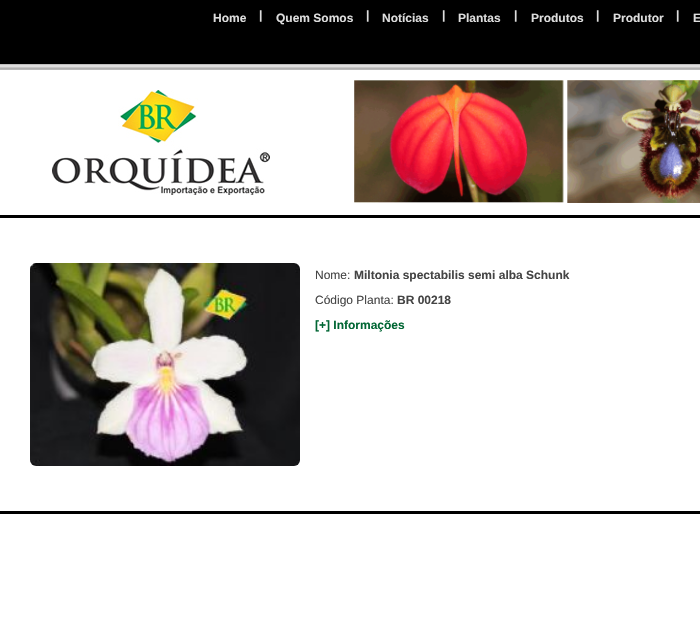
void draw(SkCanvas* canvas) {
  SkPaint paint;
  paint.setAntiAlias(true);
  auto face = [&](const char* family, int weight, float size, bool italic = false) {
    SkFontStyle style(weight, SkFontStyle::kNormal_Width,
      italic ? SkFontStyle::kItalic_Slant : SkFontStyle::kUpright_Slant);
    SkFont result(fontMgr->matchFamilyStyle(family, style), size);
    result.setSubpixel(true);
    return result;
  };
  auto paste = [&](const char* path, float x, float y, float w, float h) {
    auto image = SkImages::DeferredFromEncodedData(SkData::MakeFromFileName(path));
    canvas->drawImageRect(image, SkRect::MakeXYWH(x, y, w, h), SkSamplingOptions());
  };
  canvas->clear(0xffffffff);
  paint.setColor(0xff000000);
  canvas->drawRect(SkRect::MakeXYWH(0, 0, 700, 64), paint);
  paste("img/1.png", 0, 64, 700, 6);
  paste("img/2.png", 52, 90, 218, 105);
  paste("img/3.png", 354, 80, 346, 123);
  canvas->drawRect(SkRect::MakeXYWH(0, 215, 700, 3), paint);
  paste("img/4.png", 30, 263, 270, 203);
  canvas->drawRect(SkRect::MakeXYWH(0, 511, 700, 3), paint);
  auto f0 = face("Liberation Sans", 700, 12);
  paint.setColor(0xffdddddd);
  {
    const struct { const char* s; float x, y; } items[] = {
      {"Home", 213, 22},
      {"|", 259, 19},
      {"Quem Somos", 276, 22},
      {"|", 366, 19},
      {"Notícias", 382, 22},
      {"|", 442, 19},
      {"Plantas", 458, 22},
      {"|", 514, 19},
      {"Produtos", 531, 22},
      {"|", 596, 19},
      {"Produtor", 613, 22},
      {"|", 676, 19},
      {"E", 693, 22},
    };
    for (auto [s, x, y] : items) {
      canvas->drawString(s, x, y, f0, paint);
    }
  }
  auto f1 = face("Liberation Sans", 400, 12);
  paint.setColor(0xff444444);
  canvas->drawString("Nome:", 315, 279, f1, paint);
  canvas->drawString("Miltonia spectabilis semi alba Schunk", 354, 279, f0, paint);
  canvas->drawString("Código Planta:", 315, 304, f1, paint);
  canvas->drawString("BR 00218", 397, 304, f0, paint);
  paint.setColor(0xff006633);
  canvas->drawString("[+] Informações", 315, 329, f0, paint);
}
